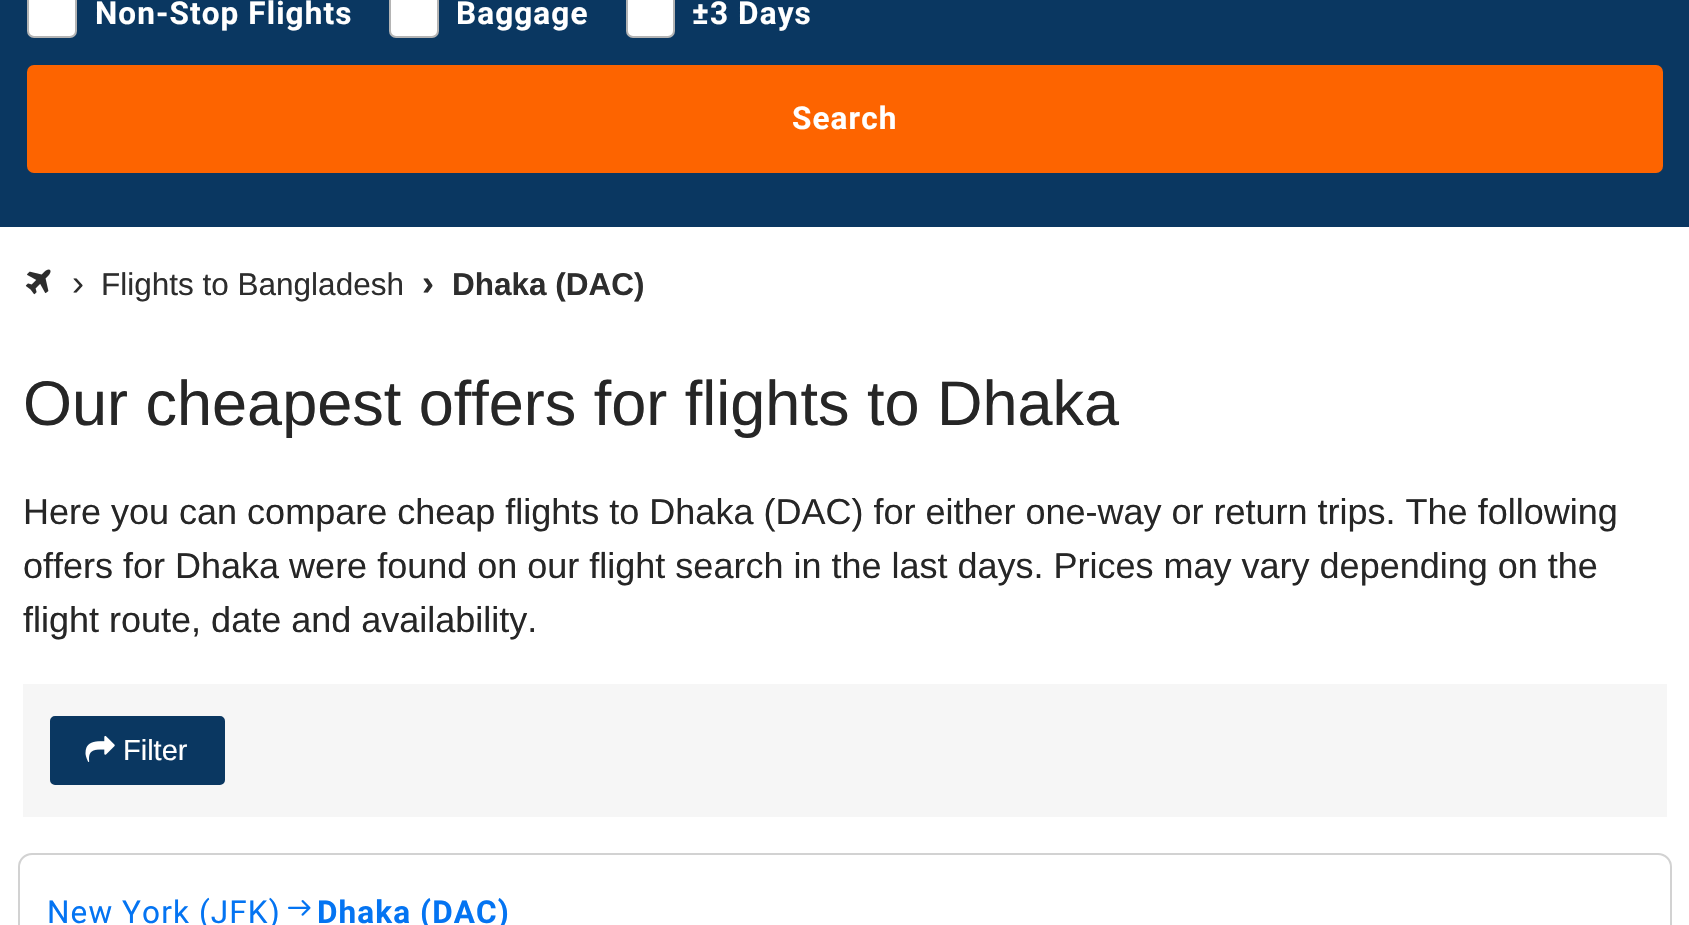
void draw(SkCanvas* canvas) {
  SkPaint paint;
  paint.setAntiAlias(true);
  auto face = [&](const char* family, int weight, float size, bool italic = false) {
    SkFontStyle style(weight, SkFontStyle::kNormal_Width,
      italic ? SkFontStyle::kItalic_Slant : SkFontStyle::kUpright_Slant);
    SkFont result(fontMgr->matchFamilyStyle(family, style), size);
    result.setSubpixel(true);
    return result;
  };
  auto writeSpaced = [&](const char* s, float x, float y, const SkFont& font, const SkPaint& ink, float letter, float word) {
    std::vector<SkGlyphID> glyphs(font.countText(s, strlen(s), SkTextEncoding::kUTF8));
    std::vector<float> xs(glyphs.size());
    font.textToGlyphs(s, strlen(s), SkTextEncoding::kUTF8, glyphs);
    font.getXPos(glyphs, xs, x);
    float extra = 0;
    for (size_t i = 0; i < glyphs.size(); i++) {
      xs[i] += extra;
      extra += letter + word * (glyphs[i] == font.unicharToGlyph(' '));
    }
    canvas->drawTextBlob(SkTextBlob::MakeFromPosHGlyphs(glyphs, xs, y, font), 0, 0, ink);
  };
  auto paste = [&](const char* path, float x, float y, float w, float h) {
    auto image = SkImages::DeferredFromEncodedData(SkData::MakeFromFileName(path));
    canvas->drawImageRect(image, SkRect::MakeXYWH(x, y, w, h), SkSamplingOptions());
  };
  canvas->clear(0xffffffff);
  paint.setColor(0xff0a3761);
  canvas->drawRect(SkRect::MakeXYWH(0, 0, 1689, 227), paint);
  paint.setColor(0xffffffff);
  canvas->drawRoundRect(SkRect::MakeXYWH(28, -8, 48, 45), 6, 6, paint);
  paint.setStroke(true);
  paint.setStrokeWidth(2);
  paint.setColor(0xffb4b4b4);
  canvas->drawRoundRect(SkRect::MakeXYWH(28, -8, 48, 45), 6, 6, paint);
  paint.setStroke(false);
  paint.setColor(0xffffffff);
  canvas->drawRoundRect(SkRect::MakeXYWH(390, -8, 48, 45), 6, 6, paint);
  paint.setStroke(true);
  paint.setColor(0xffb4b4b4);
  canvas->drawRoundRect(SkRect::MakeXYWH(390, -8, 48, 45), 6, 6, paint);
  paint.setStroke(false);
  paint.setColor(0xffffffff);
  canvas->drawRoundRect(SkRect::MakeXYWH(627, -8, 47, 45), 6, 6, paint);
  paint.setStroke(true);
  paint.setColor(0xffb4b4b4);
  canvas->drawRoundRect(SkRect::MakeXYWH(627, -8, 47, 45), 6, 6, paint);
  paint.setStroke(false);
  paint.setColor(0xfffd6400);
  canvas->drawRoundRect(SkRect::MakeXYWH(27, 65, 1636, 108), 7, 7, paint);
  paste("img/1.png", 25, 269, 26, 26);
  paint.setColor(0xfff6f6f6);
  canvas->drawRect(SkRect::MakeXYWH(23, 684, 1644, 133), paint);
  paint.setColor(0xff0a3761);
  canvas->drawRoundRect(SkRect::MakeXYWH(51, 717, 173, 67), 4, 4, paint);
  paint.setStroke(true);
  canvas->drawRoundRect(SkRect::MakeXYWH(51, 717, 173, 67), 4, 4, paint);
  paste("img/2.png", 85, 735, 30, 27);
  paint.setColor(0xffd2d2d2);
  canvas->drawRoundRect(SkRect::MakeXYWH(19, 854, 1652, 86), 13, 13, paint);
  paste("img/3.png", 288, 900, 23, 16);
  auto f0 = face("Roboto", 700, 31.5f);
  paint.setStroke(false);
  paint.setColor(0xffffffff);
  {
    const struct { const char* s; float x, y; } items[] = {
      {"Non-Stop Flights", 95, 24},
      {"Baggage", 456, 24},
      {"±3 Days", 692, 24},
      {"Search", 792, 129},
    };
    for (auto [s, x, y] : items) {
      writeSpaced(s, x, y, f0, paint, 1.1f, 0);
    }
  }
  auto f1 = face("Liberation Sans", 400, 36);
  paint.setColor(0xff2d2d2d);
  canvas->drawString("›", 72, 295, f1, paint);
  auto f2 = face("Liberation Sans", 400, 31.5f);
  canvas->drawString("Flights to Bangladesh", 101, 295, f2, paint);
  auto f3 = face("Liberation Sans", 700, 36);
  canvas->drawString("›", 422, 295, f3, paint);
  auto f4 = face("Liberation Sans", 700, 31.5f);
  canvas->drawString("Dhaka (DAC)", 452, 295, f4, paint);
  auto f5 = face("Liberation Sans", 400, 63);
  paint.setColor(0xff262626);
  canvas->drawString("Our cheapest offers for flights to Dhaka", 23, 425, f5, paint);
  {
    const struct { const char* s; float x, y; } items[] = {
      {"Here you can compare cheap flights to Dhaka (DAC) for either one-way or return trips. The following", 23, 524},
      {"offers for Dhaka were found on our flight search in the last days. Prices may vary depending on the", 23, 578},
      {"flight route, date and availability.", 23, 632},
    };
    for (auto [s, x, y] : items) {
      canvas->drawString(s, x, y, f1, paint);
    }
  }
  auto f6 = face("Liberation Sans", 400, 29);
  paint.setColor(0xffffffff);
  canvas->drawString("Filter", 123, 760, f6, paint);
  auto f7 = face("Roboto", 400, 31.5f);
  paint.setColor(0xff0474f2);
  writeSpaced("New York (JFK)", 47, 923, f7, paint, 1.1f, 0);
  writeSpaced("Dhaka (DAC)", 317, 923, f0, paint, 1.1f, 0);
}
